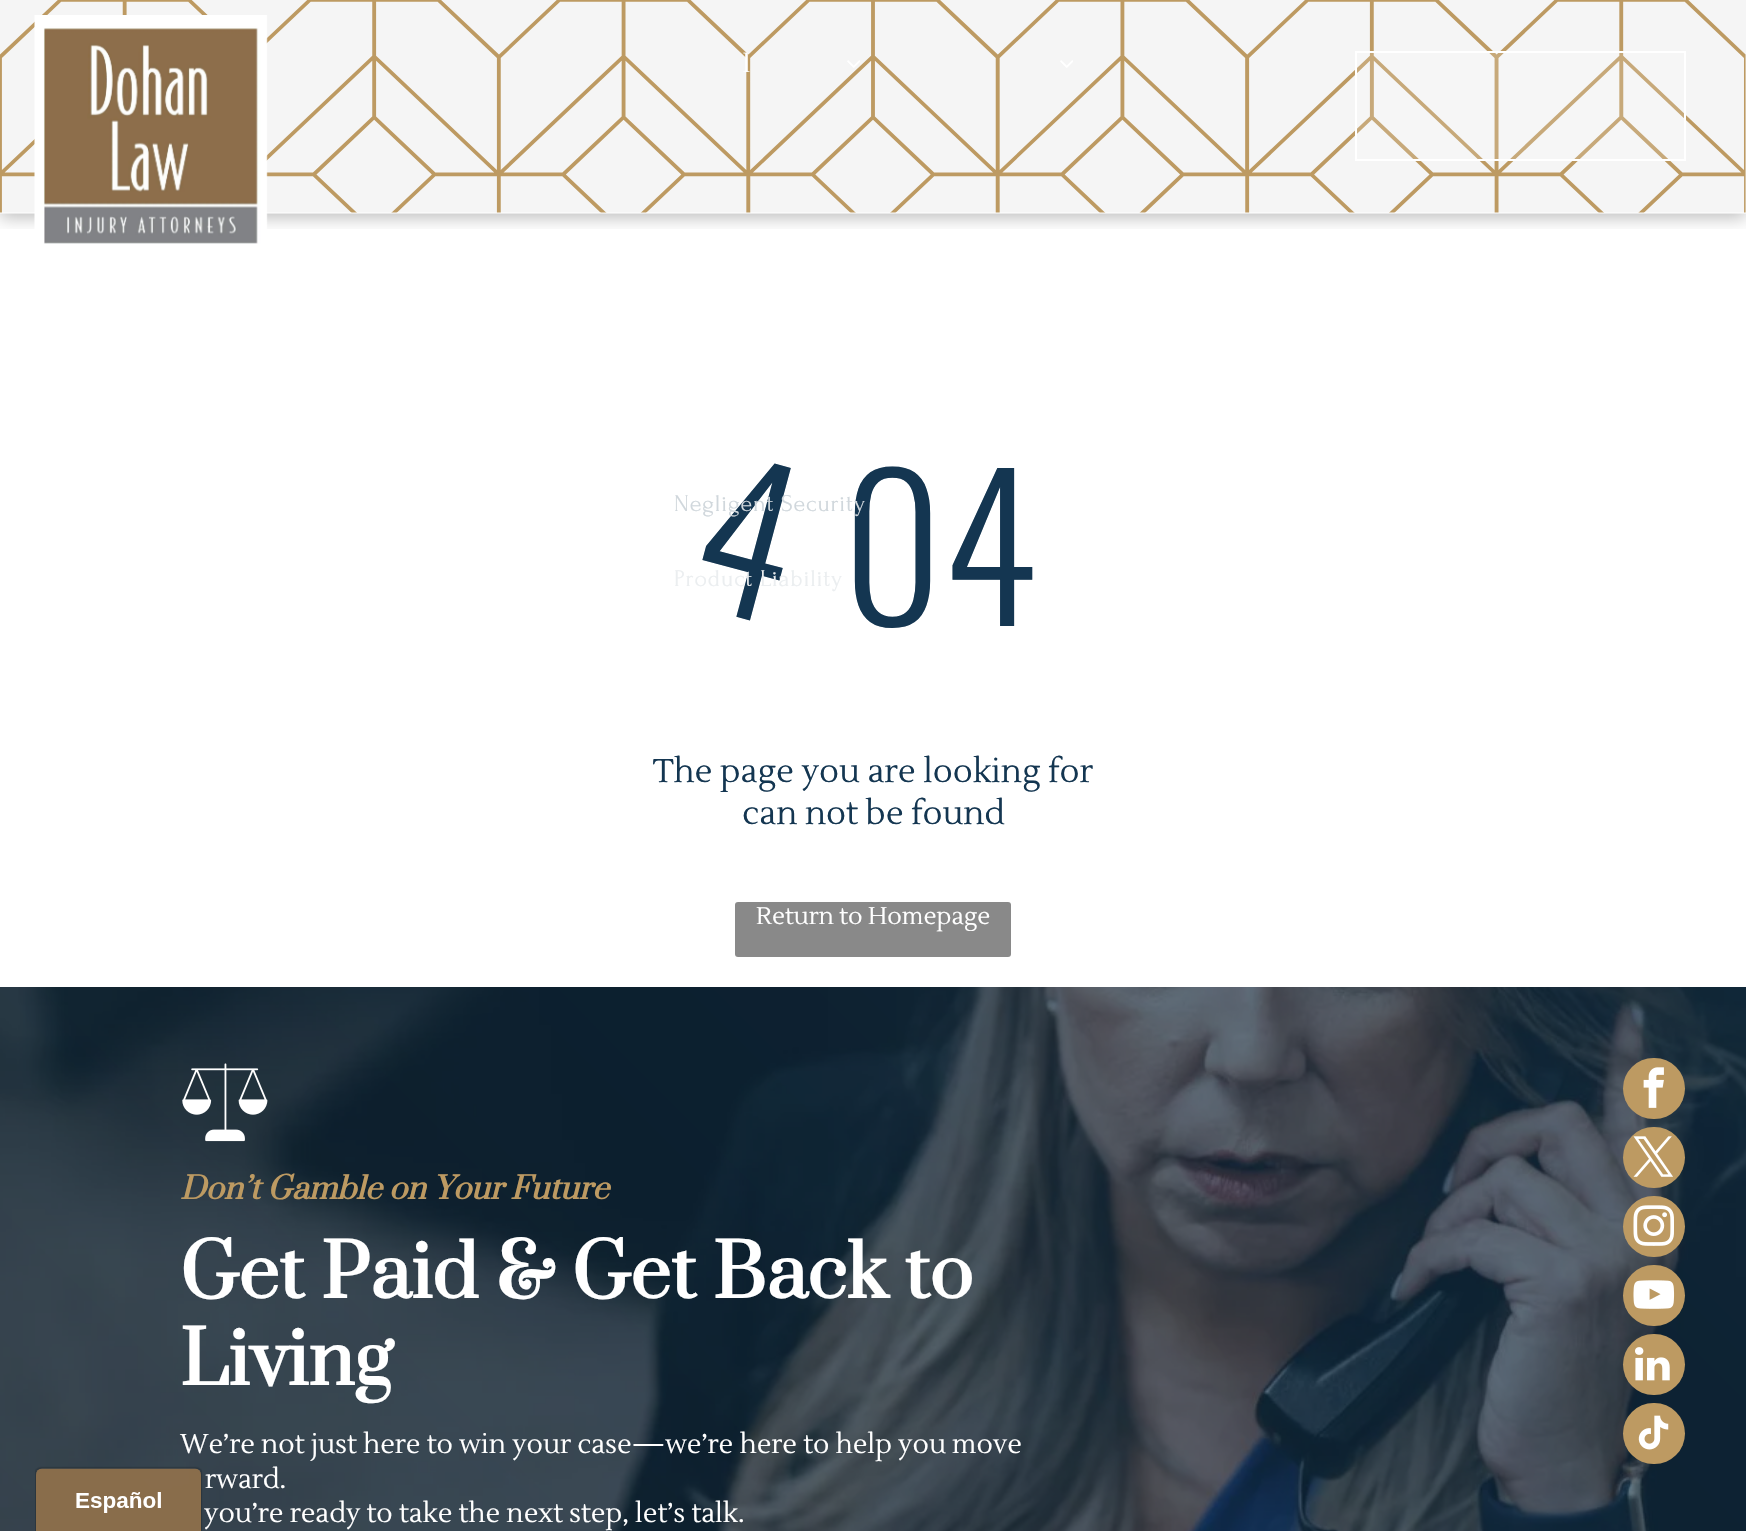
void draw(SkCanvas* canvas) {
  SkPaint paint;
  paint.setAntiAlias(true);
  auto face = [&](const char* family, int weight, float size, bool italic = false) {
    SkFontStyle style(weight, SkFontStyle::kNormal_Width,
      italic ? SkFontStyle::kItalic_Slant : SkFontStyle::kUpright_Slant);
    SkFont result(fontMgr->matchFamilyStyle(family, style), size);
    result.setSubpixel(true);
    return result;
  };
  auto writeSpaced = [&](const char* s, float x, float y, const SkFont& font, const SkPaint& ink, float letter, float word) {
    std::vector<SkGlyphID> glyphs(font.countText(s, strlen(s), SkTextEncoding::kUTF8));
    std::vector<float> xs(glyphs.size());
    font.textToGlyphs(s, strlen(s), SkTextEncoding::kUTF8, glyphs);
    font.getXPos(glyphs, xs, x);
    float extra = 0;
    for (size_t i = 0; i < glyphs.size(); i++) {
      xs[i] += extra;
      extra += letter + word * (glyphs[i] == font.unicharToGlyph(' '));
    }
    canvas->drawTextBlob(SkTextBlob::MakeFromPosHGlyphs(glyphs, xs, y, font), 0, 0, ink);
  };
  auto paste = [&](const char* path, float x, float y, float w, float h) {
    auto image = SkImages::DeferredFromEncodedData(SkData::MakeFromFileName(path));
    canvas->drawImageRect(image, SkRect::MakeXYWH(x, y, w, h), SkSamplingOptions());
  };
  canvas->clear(0xfff5f5f5);
  paste("img/6.png", 0, 987, 1746, 544);
  paste("img/1.png", 35, 1466, 168, 65);
  paste("img/2.png", 0, 0, 1746, 213);
  paint.setColor(0xffffffff);
  canvas->drawRect(SkRect::MakeXYWH(0, 213, 1746, 774), paint);
  canvas->save();
  canvas->clipRect(SkRect::MakeXYWH(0, 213, 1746, 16));
  paint.setColor(0x40000000);
  paint.setMaskFilter(SkMaskFilter::MakeBlur(kNormal_SkBlurStyle, 8));
  canvas->drawRect(SkRect::MakeXYWH(0, 5, 1746, 213), paint);
  paint.setMaskFilter(nullptr);
  canvas->restore();
  paint.setColor(0x80ffffff);
  canvas->drawRect(SkRect::MakeXYWH(0, 212, 1746, 2), paint);
  paste("img/3.png", 34, 15, 234, 229);
  paste("img/4.png", 847, 60, 13, 8);
  paste("img/5.png", 1060, 60, 13, 8);
  paint.setColor(0x26ffffff);
  canvas->drawRect(SkRect::MakeXYWH(1356, 52, 329, 108), paint);
  paint.setStroke(true);
  paint.setStrokeWidth(2);
  paint.setColor(0xffffffff);
  canvas->drawRect(SkRect::MakeXYWH(1356, 52, 329, 108), paint);
  paint.setStroke(false);
  paint.setColor(0xff898989);
  canvas->drawRoundRect(SkRect::MakeXYWH(735, 902, 276, 55), 3, 3, paint);
  paste("img/7.png", 182, 1063, 86, 79);
  paint.setColor(0xffbd9a62);
  canvas->drawRoundRect(SkRect::MakeXYWH(1623, 1058, 62, 61), 30.5f, 30.5f, paint);
  paste("img/8.png", 1643, 1067, 21, 41);
  canvas->drawRoundRect(SkRect::MakeXYWH(1623, 1127, 62, 61), 30.5f, 30.5f, paint);
  paste("img/9.png", 1633, 1136, 40, 41);
  canvas->drawRoundRect(SkRect::MakeXYWH(1623, 1196, 62, 61), 30.5f, 30.5f, paint);
  paste("img/10.png", 1633, 1205, 41, 41);
  canvas->drawRoundRect(SkRect::MakeXYWH(1623, 1265, 62, 61), 30.5f, 30.5f, paint);
  paste("img/11.png", 1633, 1280, 42, 29);
  canvas->drawRoundRect(SkRect::MakeXYWH(1623, 1334, 62, 61), 30.5f, 30.5f, paint);
  paste("img/12.png", 1635, 1347, 35, 34);
  canvas->drawRoundRect(SkRect::MakeXYWH(1623, 1403, 62, 61), 30.5f, 30.5f, paint);
  paste("img/13.png", 1638, 1415, 31, 35);
  auto f0 = face("Prata", 400, 24);
  paint.setColor(0xffffffff);
  writeSpaced("l", 743, 72, f0, paint, 0.75f, 0);
  auto f1 = face("Oswald", 300, 195);
  paint.setColor(0xff143651);
  canvas->save();
  canvas->rotate(15, 681, 602);
  canvas->drawString("4", 681, 602, f1, paint);
  canvas->restore();
  auto f2 = face("Forum", 400, 24);
  paint.setColor(0xffebeef0);
  writeSpaced("Product Liability", 674, 586, f2, paint, 0.75f, 0);
  paint.setColor(0xff143651);
  canvas->drawString("04", 842, 626, f1, paint);
  paint.setColor(0xffd0d7dc);
  writeSpaced("Negligent Security", 674, 511, f2, paint, 0.75f, 0);
  auto f3 = face("Lustria", 400, 33);
  paint.setColor(0xff143651);
  canvas->drawString("The page you are looking for", 653, 782, f3, paint);
  canvas->drawString("can not be found", 742, 824, f3, paint);
  auto f4 = face("Lustria", 400, 24);
  paint.setColor(0xffffffff);
  canvas->drawString("Return to Homepage", 756, 924, f4, paint);
  auto f5 = face("Prata", 700, 30, true);
  paint.setColor(0xffbd9a62);
  canvas->drawString("Don’t Gamble on Your Future", 180, 1199, f5, paint);
  auto f6 = face("Prata", 700, 72);
  paint.setColor(0xffffffff);
  canvas->drawString("Get Paid & Get Back to", 180, 1298, f6, paint);
  canvas->drawString("Living", 180, 1385, f6, paint);
  auto f7 = face("Lustria", 400, 27);
  {
    const struct { const char* s; float x, y; } items[] = {
      {"We’re not just here to win your case—we’re here to help you move", 180, 1453},
      {"rward.", 205, 1488},
      {"you’re ready to take the next step, let’s talk.", 204, 1522},
    };
    for (auto [s, x, y] : items) {
      canvas->drawString(s, x, y, f7, paint);
    }
  }
}
